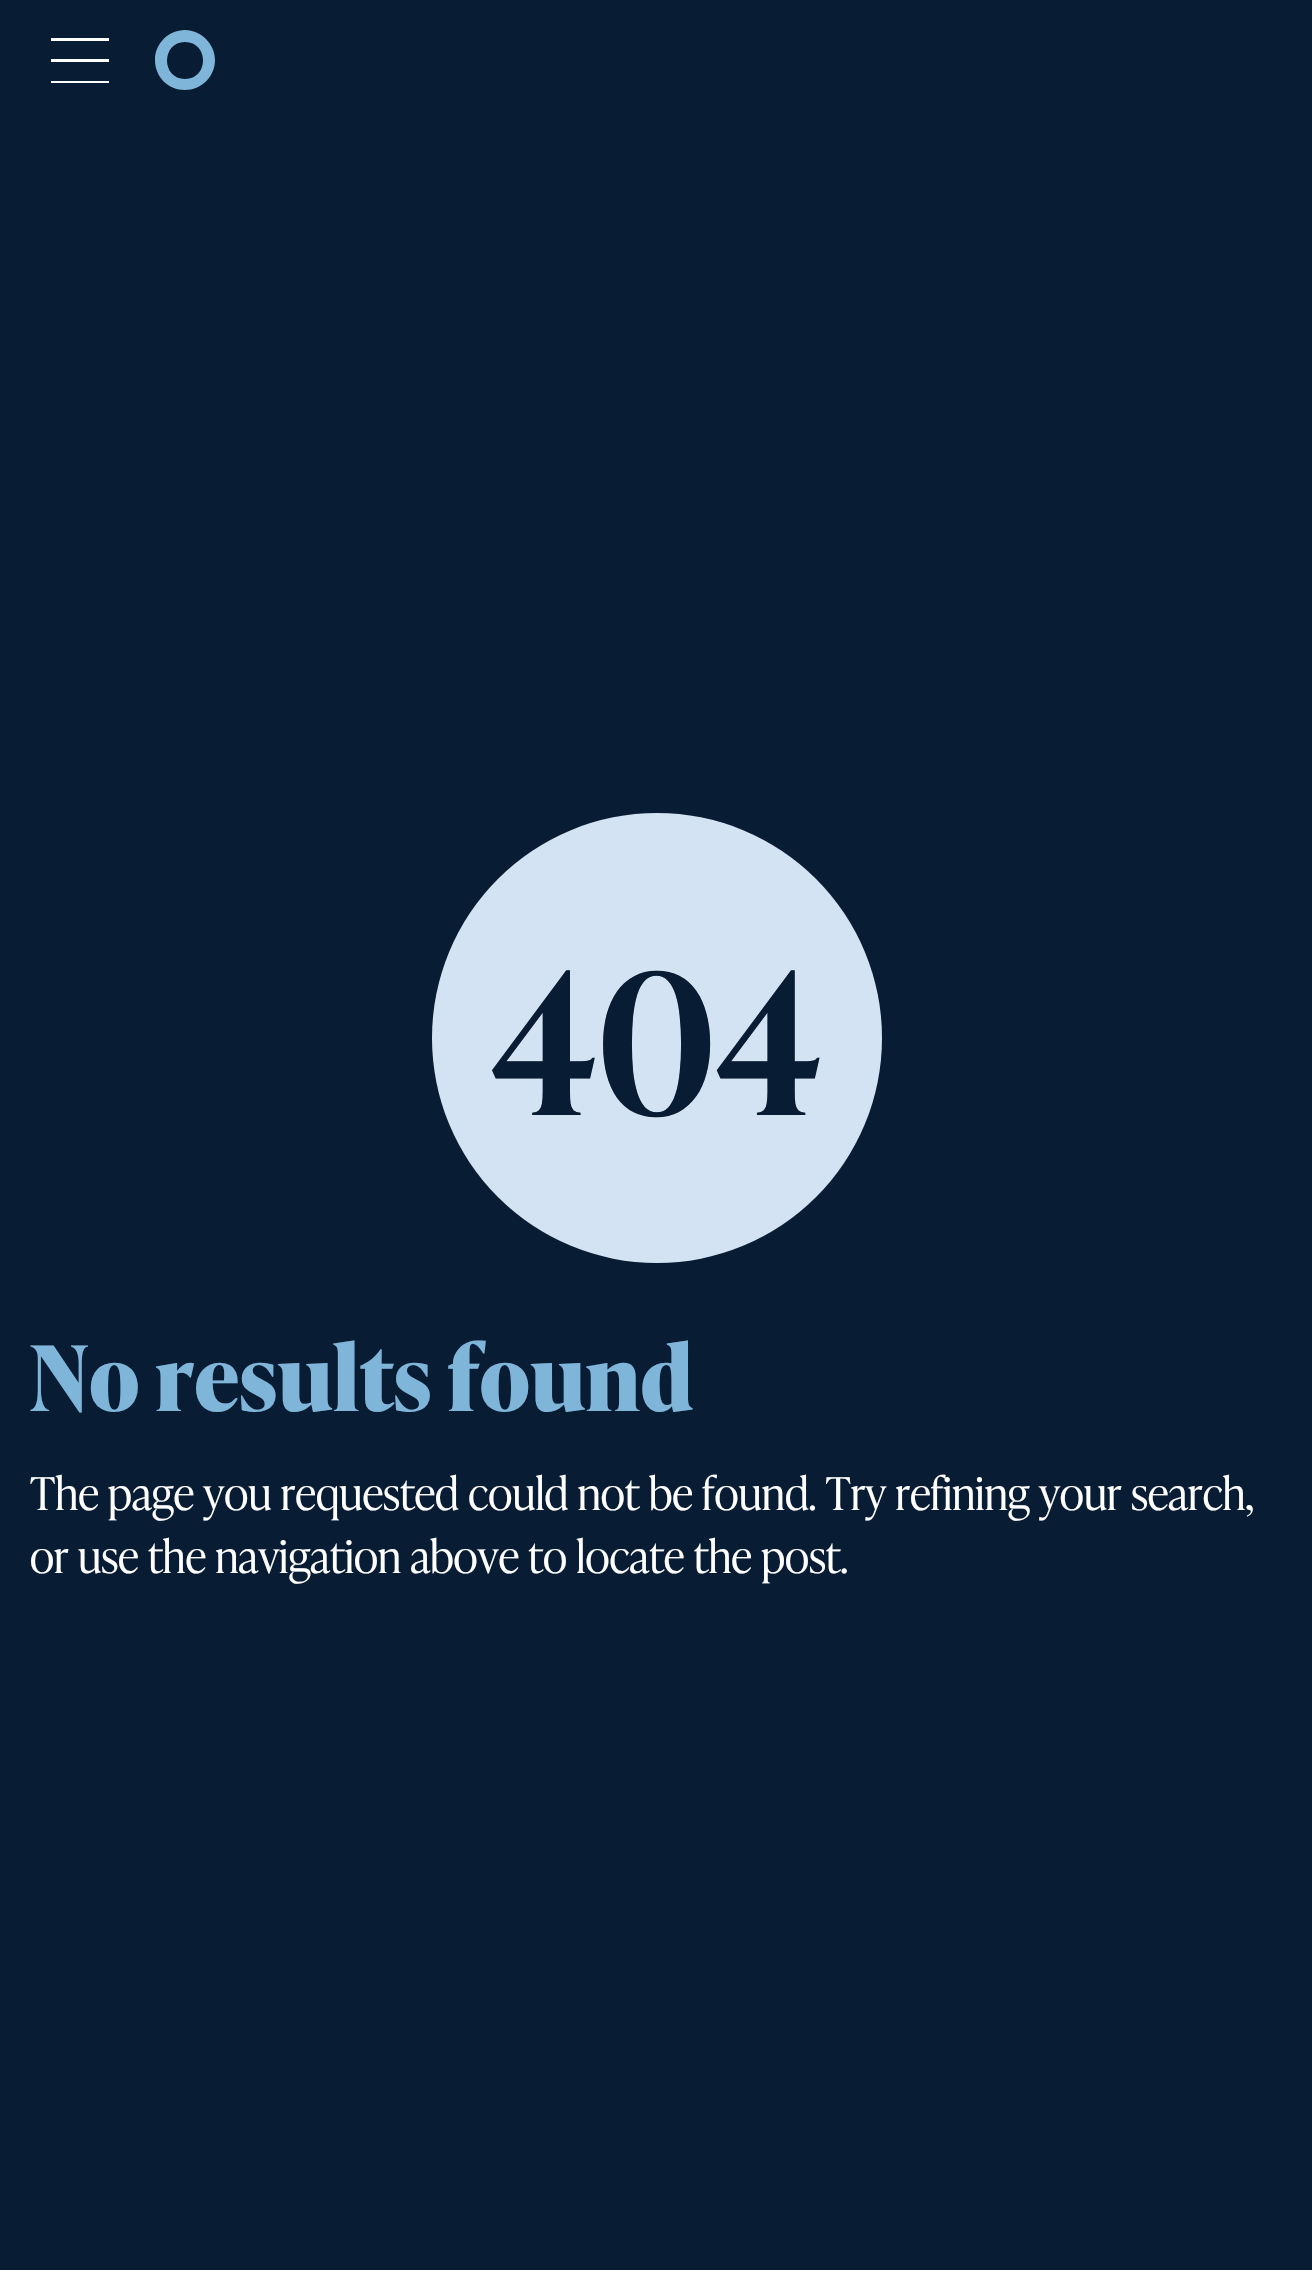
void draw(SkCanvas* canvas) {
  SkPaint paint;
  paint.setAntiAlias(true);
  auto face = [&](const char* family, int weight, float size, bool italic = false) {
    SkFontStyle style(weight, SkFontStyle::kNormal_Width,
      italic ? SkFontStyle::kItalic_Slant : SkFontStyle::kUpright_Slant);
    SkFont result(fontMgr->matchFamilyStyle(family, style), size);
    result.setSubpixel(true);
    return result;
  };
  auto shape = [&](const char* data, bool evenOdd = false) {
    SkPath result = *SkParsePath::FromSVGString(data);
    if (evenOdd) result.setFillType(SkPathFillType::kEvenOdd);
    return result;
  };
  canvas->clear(0xff081c33);
  {
    const struct { float x, y, w, h; SkColor color; } items[] = {
      {51, 59, 58, 3, 0xffffffff},
      {51, 38, 58, 3, 0xffffffff},
      {51, 81, 58, 2, 0xffffffff},
    };
    for (auto [x, y, w, h, color] : items) {
      paint.setColor(color);
      canvas->drawRect(SkRect::MakeXYWH(x, y, w, h), paint);
    }
  }
  paint.setColor(0xff80b5da);
  canvas->drawPath(shape("M185 79C161 79 161 42 185 42C209 42 209 79 185 79M185 30C168 30 155 44 155 60C155 77 168 90 185 90C201 90 215 77 215 60C215 44 201 30 185 30"), paint);
  paint.setColor(0xffd4e3f4);
  canvas->drawCircle(657, 1038, 225, paint);
  auto f0 = face("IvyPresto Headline", 600, 195);
  paint.setColor(0xff081c33);
  canvas->drawString("404", 492, 1115, f0, paint);
  auto f1 = face("IvyPresto Headline", 700, 90);
  paint.setColor(0xff80b5da);
  canvas->drawString("No results found", 30, 1411, f1, paint);
  auto f2 = face("IvyPresto Headline", 300, 45);
  paint.setColor(0xffffffff);
  canvas->drawString("The page you requested could not be found. Try refining your search,", 30, 1510, f2, paint);
  canvas->drawString("or use the navigation above to locate the post.", 30, 1573, f2, paint);
}
